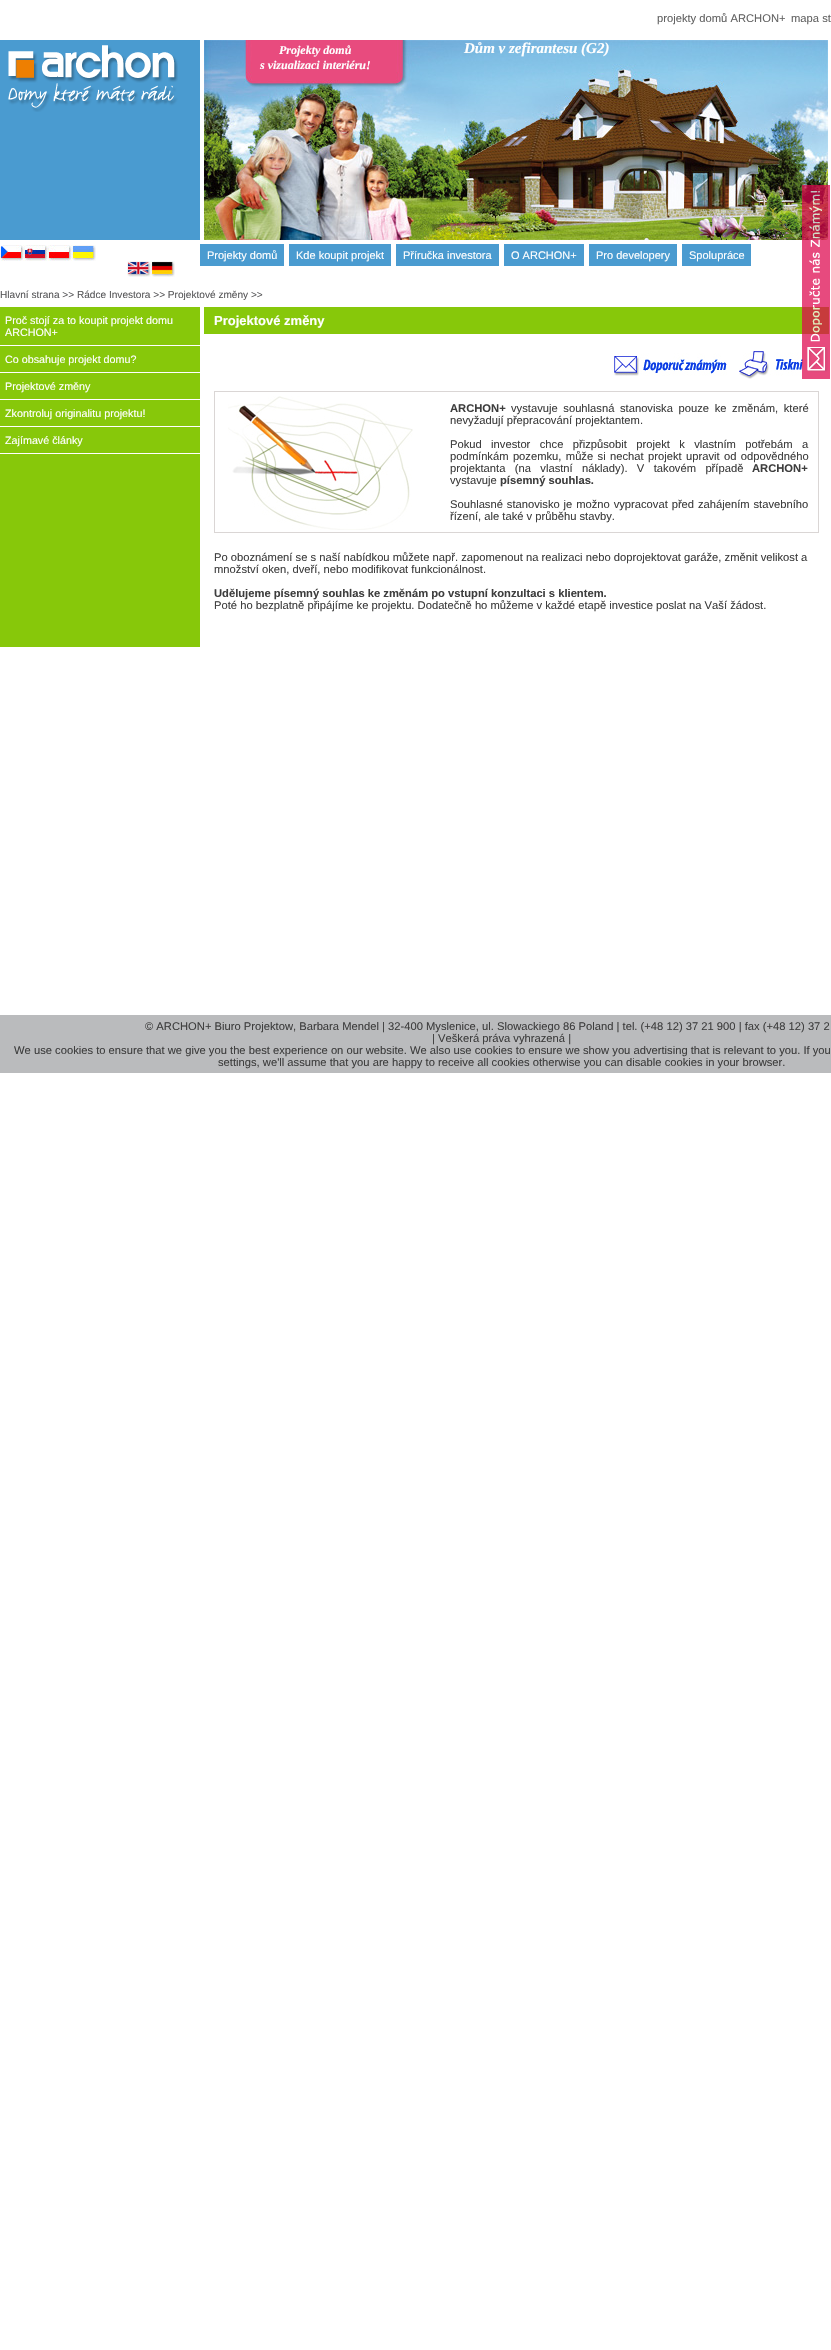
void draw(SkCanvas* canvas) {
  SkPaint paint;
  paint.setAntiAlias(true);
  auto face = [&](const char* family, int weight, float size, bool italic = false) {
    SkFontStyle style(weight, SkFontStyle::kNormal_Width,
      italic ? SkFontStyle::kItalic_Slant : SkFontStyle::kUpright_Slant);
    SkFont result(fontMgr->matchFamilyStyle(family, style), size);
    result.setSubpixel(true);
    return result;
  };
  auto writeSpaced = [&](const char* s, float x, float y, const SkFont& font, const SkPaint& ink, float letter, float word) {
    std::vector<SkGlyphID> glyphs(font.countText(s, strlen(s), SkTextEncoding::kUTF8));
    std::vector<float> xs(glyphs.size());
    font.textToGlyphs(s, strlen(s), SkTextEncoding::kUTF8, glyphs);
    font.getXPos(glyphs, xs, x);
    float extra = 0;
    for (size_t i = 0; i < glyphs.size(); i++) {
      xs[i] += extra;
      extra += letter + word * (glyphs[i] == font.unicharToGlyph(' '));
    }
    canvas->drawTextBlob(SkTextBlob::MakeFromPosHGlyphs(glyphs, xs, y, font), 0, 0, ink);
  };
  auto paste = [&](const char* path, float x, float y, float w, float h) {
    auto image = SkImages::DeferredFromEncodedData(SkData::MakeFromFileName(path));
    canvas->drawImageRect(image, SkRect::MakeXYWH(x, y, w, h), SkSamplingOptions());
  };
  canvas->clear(0xffffffff);
  paint.setColor(0xff4a9bd0);
  canvas->drawRect(SkRect::MakeXYWH(0, 40, 200, 200), paint);
  paste("img/1.png", 8, 45, 170, 67);
  paste("img/2.png", 204, 40, 624, 200);
  paste("img/3.png", 0, 245, 24, 16);
  paste("img/4.png", 24, 245, 24, 16);
  paste("img/5.png", 48, 245, 24, 16);
  paste("img/6.png", 72, 245, 24, 16);
  paste("img/7.png", 127, 261, 24, 16);
  paste("img/8.png", 151, 261, 24, 16);
  {
    const struct { float x, y, w, h; SkColor color; } items[] = {
      {200, 244, 84, 22, 0xff4a9bd0},
      {289, 244, 102, 22, 0xff4a9bd0},
      {396, 244, 103, 22, 0xff4a9bd0},
      {504, 244, 80, 22, 0xff4a9bd0},
      {589, 244, 88, 22, 0xff4a9bd0},
      {682, 244, 69, 22, 0xff4a9bd0},
      {204, 307, 625, 27, 0xff87c80a},
    };
    for (auto [x, y, w, h, color] : items) {
      paint.setColor(color);
      canvas->drawRect(SkRect::MakeXYWH(x, y, w, h), paint);
    }
  }
  paste("img/11.png", 739, 351, 64, 28);
  paste("img/9.png", 802, 185, 28, 194);
  {
    const struct { float x, y, w, h; SkColor color; } items[] = {
      {0, 307, 200, 340, 0xff87c80a},
      {0, 345, 200, 1, 0xffffffff},
      {0, 372, 200, 1, 0xffffffff},
      {0, 399, 200, 1, 0xffffffff},
      {0, 426, 200, 1, 0xffffffff},
      {0, 453, 200, 1, 0xffffffff},
    };
    for (auto [x, y, w, h, color] : items) {
      paint.setColor(color);
      canvas->drawRect(SkRect::MakeXYWH(x, y, w, h), paint);
    }
  }
  paste("img/10.png", 612, 353, 115, 23);
  paint.setStroke(true);
  paint.setStrokeWidth(1);
  paint.setColor(0xffdad6d5);
  canvas->drawRect(SkRect::MakeXYWH(214.5f, 391.5f, 604, 141), paint);
  paste("img/12.png", 228, 396, 185, 134);
  paint.setStroke(false);
  paint.setColor(0xffbabbbd);
  canvas->drawRect(SkRect::MakeXYWH(0, 1015, 831, 58), paint);
  auto f0 = face("Liberation Sans", 400, 11.2f);
  paint.setColor(0xff626262);
  canvas->drawString("projekty domů ARCHON+", 657, 22, f0, paint);
  canvas->drawString("mapa st", 791, 22, f0, paint);
  auto f1 = face("Liberation Serif", 700, 12, true);
  paint.setColor(0xffffffff);
  canvas->drawString("Projekty domů", 279, 54, f1, paint);
  canvas->drawString("s vizualizaci interiéru!", 260, 69, f1, paint);
  auto f2 = face("Liberation Serif", 700, 15, true);
  canvas->drawString("Dům v zefirantesu (G2)", 464, 53, f2, paint);
  auto f3 = face("Liberation Sans", 400, 11);
  {
    const struct { const char* s; float x, y; } items[] = {
      {"Projekty domů", 207, 259},
      {"Kde koupit projekt", 296, 259},
      {"Příručka investora", 403, 259},
      {"О ARCHON+", 511, 259},
      {"Pro developery", 596, 259},
      {"Spolupráce", 689, 259},
    };
    for (auto [s, x, y] : items) {
      canvas->drawString(s, x, y, f3, paint);
    }
  }
  auto f4 = face("Liberation Sans", 400, 10.1f);
  paint.setColor(0xff58585a);
  canvas->drawString("Hlavní strana >> Rádce Investora >> Projektové změny >>", 0, 298, f4, paint);
  auto f5 = face("Liberation Sans", 400, 10.75f);
  paint.setColor(0xffffffff);
  {
    const struct { const char* s; float x, y; } items[] = {
      {"Proč stojí za to koupit projekt domu", 5, 324},
      {"ARCHON+", 5, 336},
      {"Co obsahuje projekt domu?", 5, 363},
      {"Projektové změny", 5, 390},
      {"Zkontroluj originalitu projektu!", 5, 417},
      {"Zajímavé články", 5, 444},
    };
    for (auto [s, x, y] : items) {
      canvas->drawString(s, x, y, f5, paint);
    }
  }
  auto f6 = face("Liberation Sans", 700, 13);
  canvas->drawString("Projektové změny", 214, 325, f6, paint);
  auto f7 = face("Liberation Sans", 700, 11.2f);
  paint.setColor(0xff3e3e3e);
  canvas->drawString("ARCHON+", 450, 412, f7, paint);
  writeSpaced("vystavuje souhlasná stanoviska pouze ke změnám, které", 511, 412, f0, paint, 0, 2.5f);
  canvas->drawString("nevyžadují přepracování projektantem.", 450, 424, f0, paint);
  writeSpaced("Pokud investor chce přizpůsobit projekt k vlastním potřebám a", 450, 448, f0, paint, 0, 6.25f);
  writeSpaced("podmínkám pozemku, může si nechat projekt upravit od odpovědného", 450, 460, f0, paint, 0, 1.25f);
  writeSpaced("projektanta (na vlastní náklady). V takovém případě", 450, 472, f0, paint, 0, 6.25f);
  canvas->drawString("ARCHON+", 752, 472, f7, paint);
  canvas->drawString("vystavuje", 450, 484, f0, paint);
  canvas->drawString("písemný souhlas.", 500, 484, f7, paint);
  writeSpaced("Souhlasné stanovisko je možno vypracovat před zahájením stavebního", 450, 508, f0, paint, 0, 0.75f);
  {
    const struct { const char* s; float x, y; } items[] = {
      {"řízení, ale také v průběhu stavby.", 450, 520},
      {"Po oboznámení se s naší nabídkou můžete např. zapomenout na realizaci nebo doprojektovat garáže, změnit velikost a", 214, 561},
      {"množství oken, dveří, nebo modifikovat funkcionálnost.", 214, 573},
    };
    for (auto [s, x, y] : items) {
      canvas->drawString(s, x, y, f0, paint);
    }
  }
  canvas->drawString("Udělujeme písemný souhlas ke změnám po vstupní konzultaci s klientem.", 214, 597, f7, paint);
  {
    const struct { const char* s; float x, y; } items[] = {
      {"Poté ho bezplatně připájíme ke projektu. Dodatečně ho můžeme v každé etapě investice poslat na Vaší žádost.", 214, 609},
      {"© ARCHON+ Biuro Projektow, Barbara Mendel | 32-400 Myslenice, ul. Slowackiego 86 Poland | tel. (+48 12) 37 21 900 | fax (+48 12) 37 2", 145, 1030},
      {"| Veškerá práva vyhrazená |", 432, 1042},
      {"We use cookies to ensure that we give you the best experience on our website. We also use cookies to ensure we show you advertising that is relevant to you. If you", 14, 1054},
      {"settings, we'll assume that you are happy to receive all cookies otherwise you can disable cookies in your browser.", 218, 1066},
    };
    for (auto [s, x, y] : items) {
      canvas->drawString(s, x, y, f0, paint);
    }
  }
}
